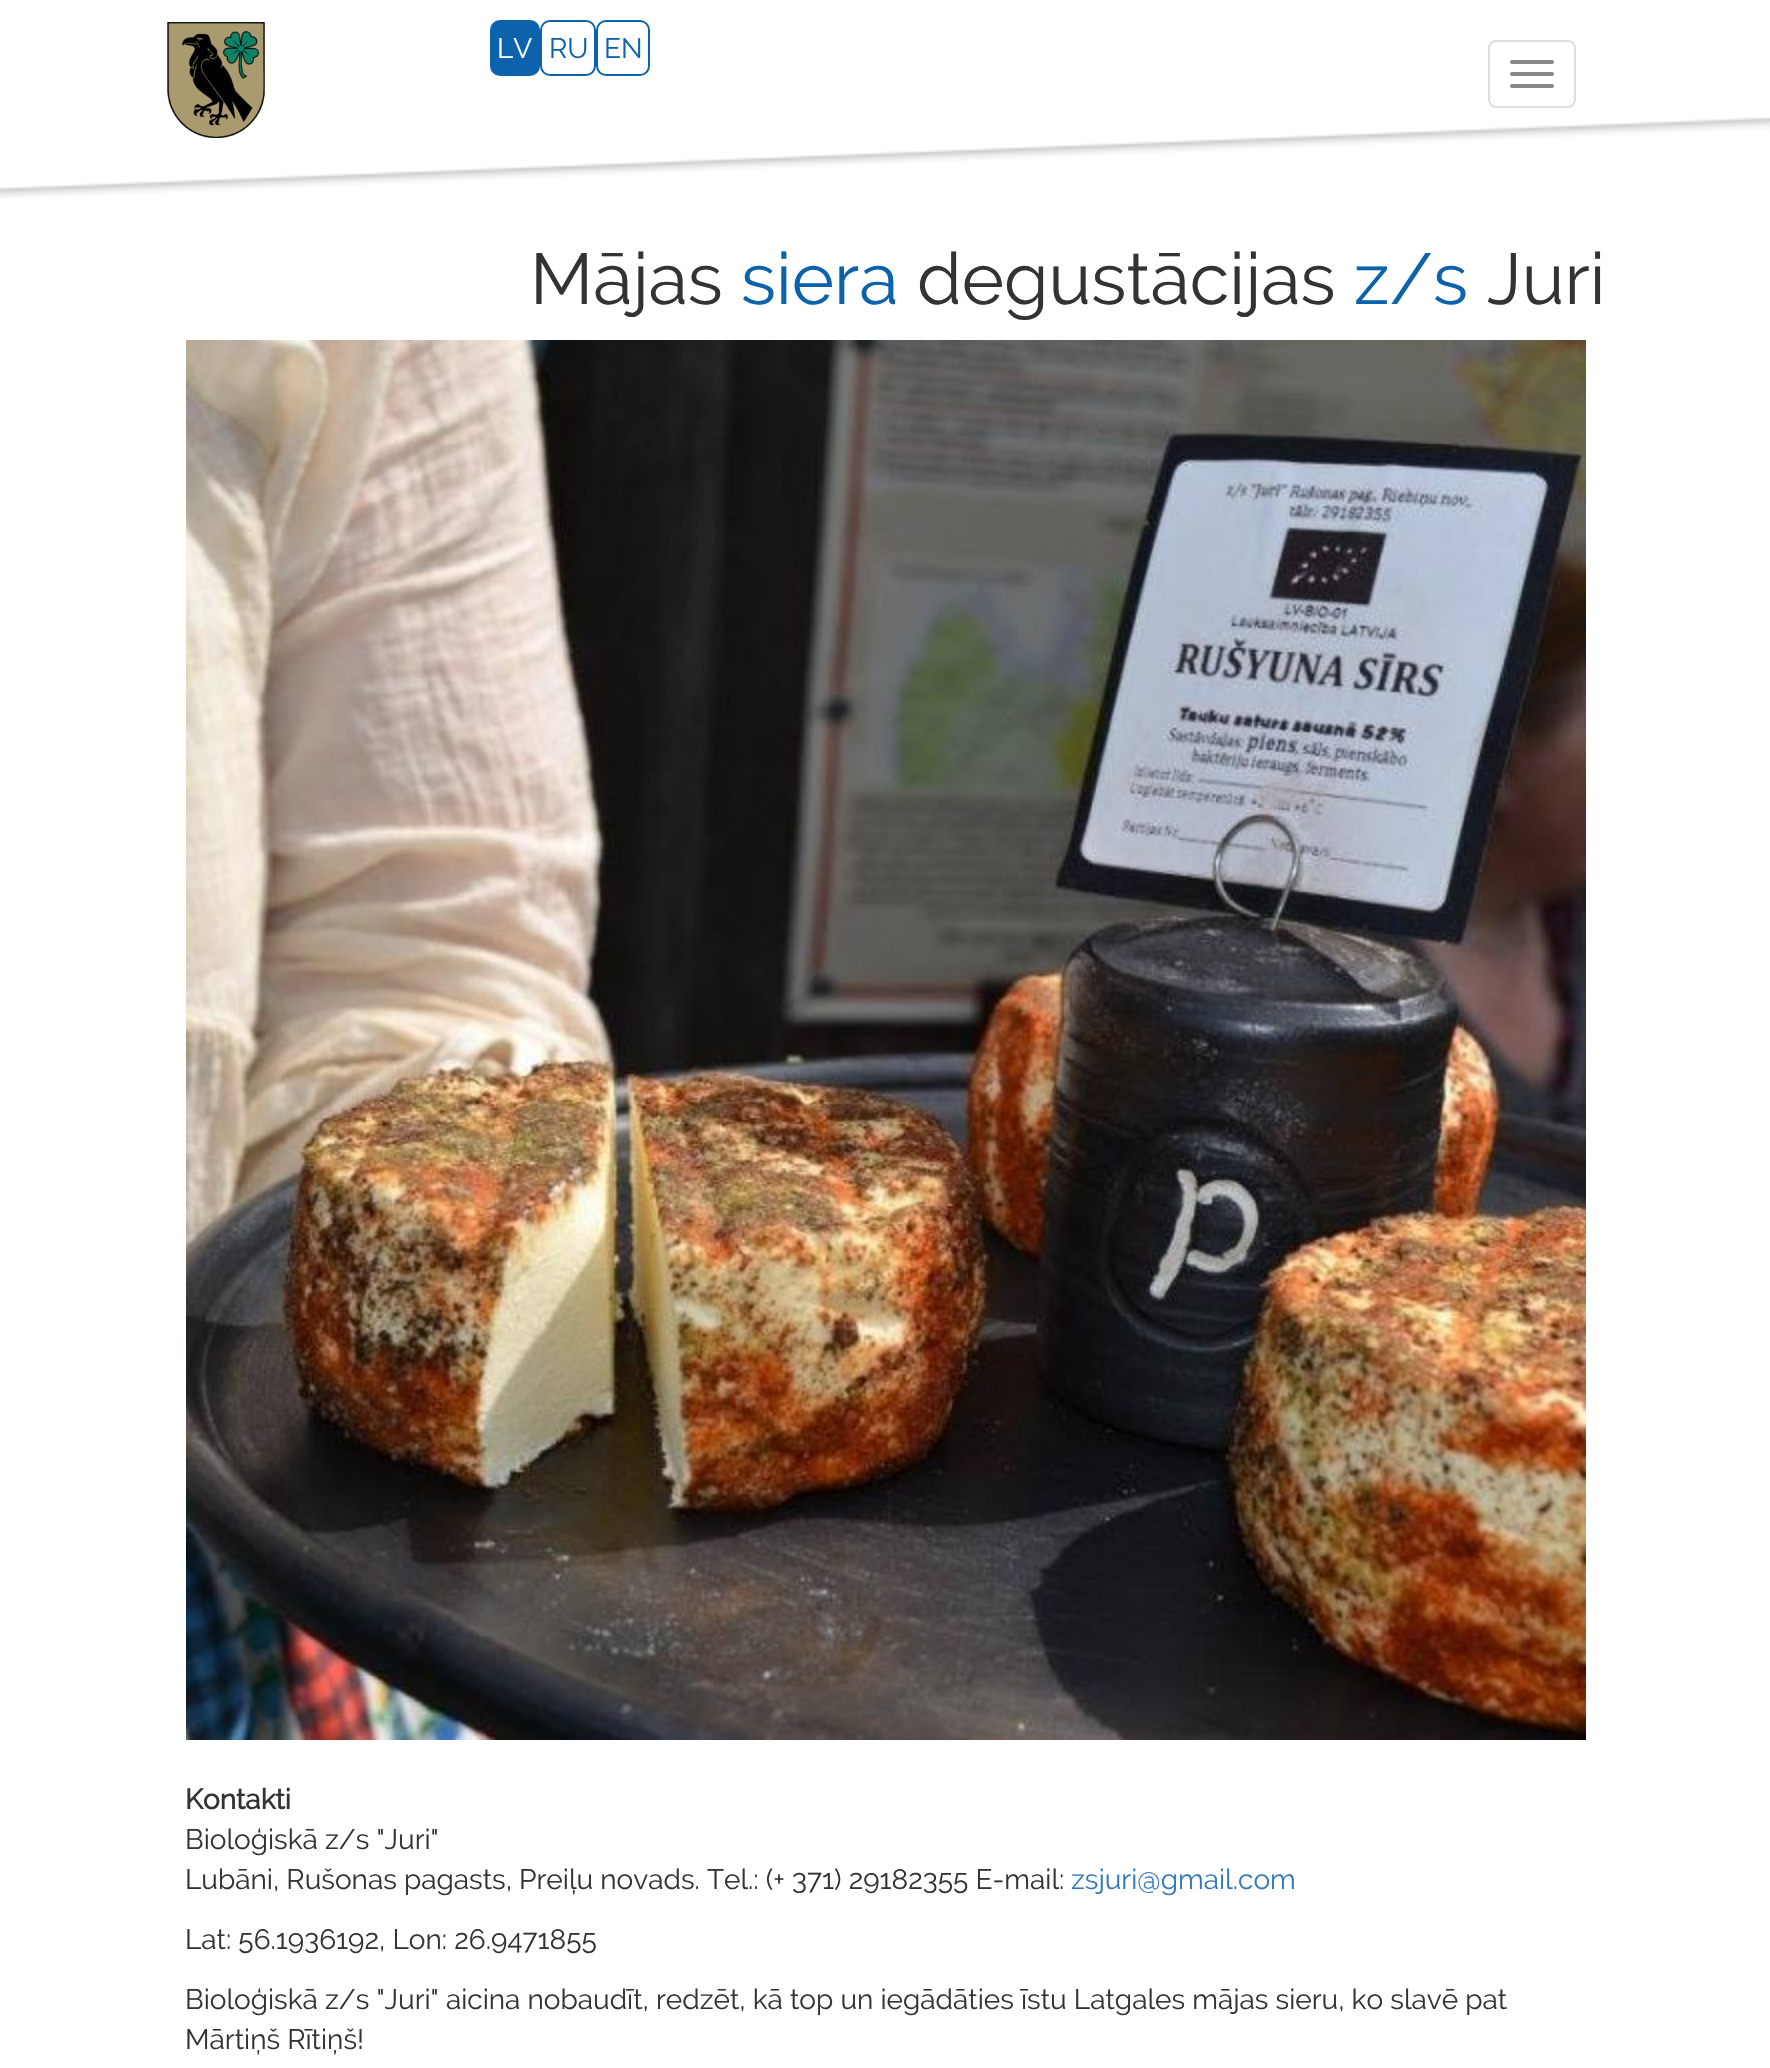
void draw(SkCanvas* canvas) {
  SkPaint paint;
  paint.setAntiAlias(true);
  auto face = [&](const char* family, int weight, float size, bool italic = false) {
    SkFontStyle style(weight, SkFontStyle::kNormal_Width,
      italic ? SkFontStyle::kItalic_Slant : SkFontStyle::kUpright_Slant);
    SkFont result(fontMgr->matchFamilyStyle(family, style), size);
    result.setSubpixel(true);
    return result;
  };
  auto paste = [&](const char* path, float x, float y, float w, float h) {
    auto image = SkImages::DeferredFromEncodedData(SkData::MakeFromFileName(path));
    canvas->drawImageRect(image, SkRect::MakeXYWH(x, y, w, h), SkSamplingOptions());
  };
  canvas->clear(0xffffffff);
  paste("img/1.png", 0, 117, 1770, 81);
  paste("img/2.png", 167, 22, 98, 116);
  paint.setColor(0xff0c62ab);
  canvas->drawRoundRect(SkRect::MakeXYWH(491, 21, 48, 54), 9, 9, paint);
  paint.setStroke(true);
  paint.setStrokeWidth(2);
  canvas->drawRoundRect(SkRect::MakeXYWH(491, 21, 48, 54), 9, 9, paint);
  canvas->drawRoundRect(SkRect::MakeXYWH(541, 21, 54, 54), 9, 9, paint);
  canvas->drawRoundRect(SkRect::MakeXYWH(597, 21, 52, 54), 9, 9, paint);
  paint.setColor(0xffdddddd);
  canvas->drawRoundRect(SkRect::MakeXYWH(1489, 41, 86, 66), 7, 7, paint);
  paint.setStroke(false);
  paint.setColor(0xff888888);
  canvas->drawRoundRect(SkRect::MakeXYWH(1510, 60, 44, 4), 2, 2, paint);
  canvas->drawRoundRect(SkRect::MakeXYWH(1510, 72, 44, 4), 2, 2, paint);
  canvas->drawRoundRect(SkRect::MakeXYWH(1510, 84, 44, 4), 2, 2, paint);
  paste("img/3.png", 186, 340, 1400, 1400);
  auto f0 = face("Raleway", 400, 28);
  paint.setColor(0xffffffff);
  canvas->drawString("LV", 497, 58, f0, paint);
  paint.setColor(0xff0c62ab);
  canvas->drawString("RU", 549, 58, f0, paint);
  canvas->drawString("EN", 604, 58, f0, paint);
  auto f1 = face("Raleway", 400, 72);
  paint.setColor(0xff333333);
  canvas->drawString("Mājas", 530, 304, f1, paint);
  paint.setColor(0xff0c62ab);
  canvas->drawString("siera", 741, 304, f1, paint);
  paint.setColor(0xff333333);
  canvas->drawString("degustācijas", 917, 304, f1, paint);
  paint.setColor(0xff0c62ab);
  canvas->drawString("z/s", 1354, 304, f1, paint);
  paint.setColor(0xff333333);
  canvas->drawString("Juri", 1487, 304, f1, paint);
  auto f2 = face("Raleway", 700, 28);
  canvas->drawString("Kontakti", 185, 1809, f2, paint);
  canvas->drawString("Bioloģiskā z/s \"Juri\"", 185, 1849, f0, paint);
  canvas->drawString("Lubāni, Rušonas pagasts, Preiļu novads. Tel.: (+ 371) 29182355 E-mail:", 185, 1889, f0, paint);
  paint.setColor(0xff337ab7);
  canvas->drawString("zsjuri@gmail.com", 1071, 1889, f0, paint);
  paint.setColor(0xff333333);
  {
    const struct { const char* s; float x, y; } items[] = {
      {"Lat: 56.1936192, Lon: 26.9471855", 185, 1949},
      {"Bioloģiskā z/s \"Juri\" aicina nobaudīt, redzēt, kā top un iegādāties īstu Latgales mājas sieru, ko slavē pat", 185, 2009},
      {"Mārtiņš Rītiņš!", 185, 2049},
    };
    for (auto [s, x, y] : items) {
      canvas->drawString(s, x, y, f0, paint);
    }
  }
}
